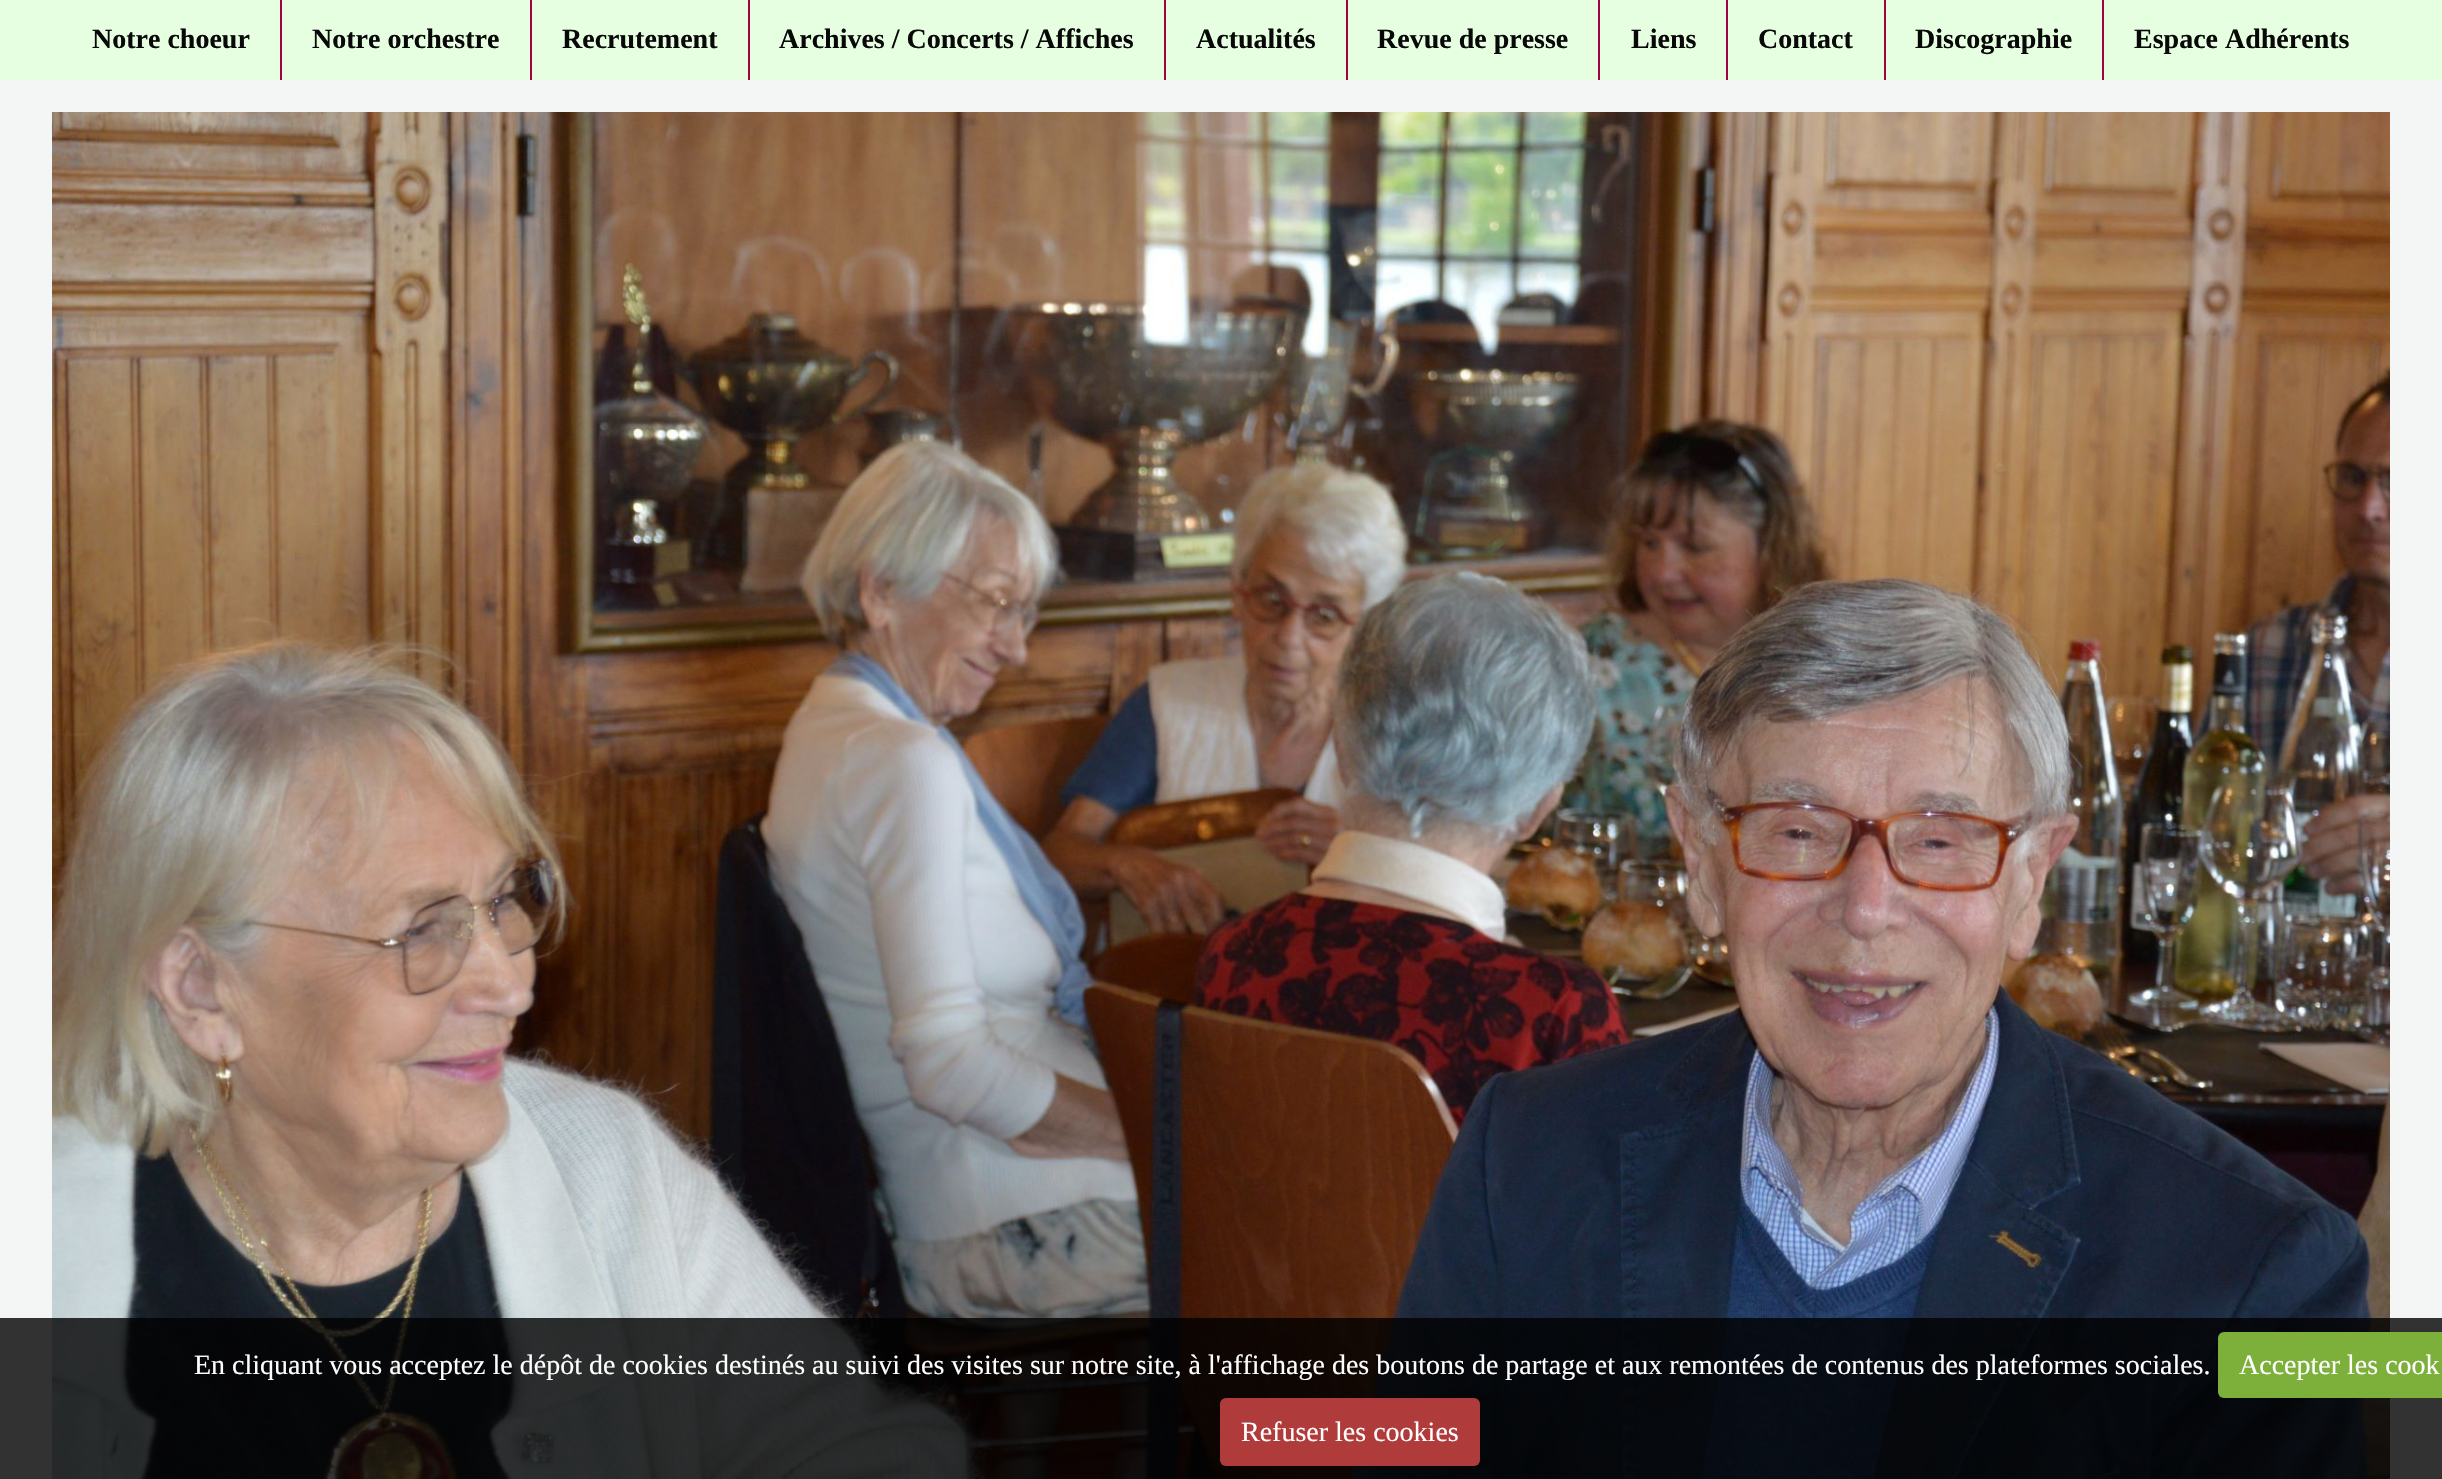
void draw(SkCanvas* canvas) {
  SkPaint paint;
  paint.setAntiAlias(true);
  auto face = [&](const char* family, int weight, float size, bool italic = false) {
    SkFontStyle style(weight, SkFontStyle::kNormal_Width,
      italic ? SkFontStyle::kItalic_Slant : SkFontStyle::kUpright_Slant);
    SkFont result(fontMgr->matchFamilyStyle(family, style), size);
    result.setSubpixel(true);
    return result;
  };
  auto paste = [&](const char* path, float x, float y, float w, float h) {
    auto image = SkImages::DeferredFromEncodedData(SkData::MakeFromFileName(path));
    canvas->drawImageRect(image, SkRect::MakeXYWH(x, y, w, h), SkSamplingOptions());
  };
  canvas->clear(0xfff3f6f4);
  {
    const struct { float x, y, w, h; SkColor color; } items[] = {
      {0, 0, 2442, 80, 0xffe7ffe1},
      {280, 0, 2, 80, 0xffa30044},
      {530, 0, 2, 80, 0xffa30044},
      {748, 0, 2, 80, 0xffa30044},
      {1164, 0, 2, 80, 0xffa30044},
      {1346, 0, 2, 80, 0xffa30044},
      {1598, 0, 2, 80, 0xffa30044},
      {1726, 0, 2, 80, 0xffa30044},
      {1884, 0, 2, 80, 0xffa30044},
      {2102, 0, 2, 80, 0xffa30044},
    };
    for (auto [x, y, w, h, color] : items) {
      paint.setColor(color);
      canvas->drawRect(SkRect::MakeXYWH(x, y, w, h), paint);
    }
  }
  paste("img/1.png", 52, 112, 2338, 1367);
  paint.setColor(0xcc000000);
  canvas->drawRect(SkRect::MakeXYWH(0, 1318, 2442, 161), paint);
  paint.setColor(0xff7daf3b);
  canvas->drawRoundRect(SkRect::MakeXYWH(2218, 1332, 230, 66), 6, 6, paint);
  paint.setColor(0xffaf3b3b);
  canvas->drawRoundRect(SkRect::MakeXYWH(1220, 1398, 260, 68), 6, 6, paint);
  auto f0 = face("Liberation Serif", 700, 28);
  paint.setColor(0xff080808);
  {
    const struct { const char* s; float x, y; } items[] = {
      {"Notre choeur", 92, 48},
      {"Notre orchestre", 312, 48},
      {"Recrutement", 562, 48},
      {"Archives / Concerts / Affiches", 779, 48},
      {"Actualités", 1196, 48},
      {"Revue de presse", 1377, 48},
      {"Liens", 1631, 48},
      {"Contact", 1758, 48},
      {"Discographie", 1915, 48},
      {"Espace Adhérents", 2134, 48},
    };
    for (auto [s, x, y] : items) {
      canvas->drawString(s, x, y, f0, paint);
    }
  }
  auto f1 = face("Liberation Serif", 400, 28);
  paint.setColor(0xffffffff);
  {
    const struct { const char* s; float x, y; } items[] = {
      {"En cliquant vous acceptez le dépôt de cookies destinés au suivi des visites sur notre site, à l'affichage des boutons de partage et aux remontées de contenus des plateformes sociales.", 194, 1374},
      {"Accepter les cook", 2239, 1374},
      {"Refuser les cookies", 1241, 1441},
    };
    for (auto [s, x, y] : items) {
      canvas->drawString(s, x, y, f1, paint);
    }
  }
}
